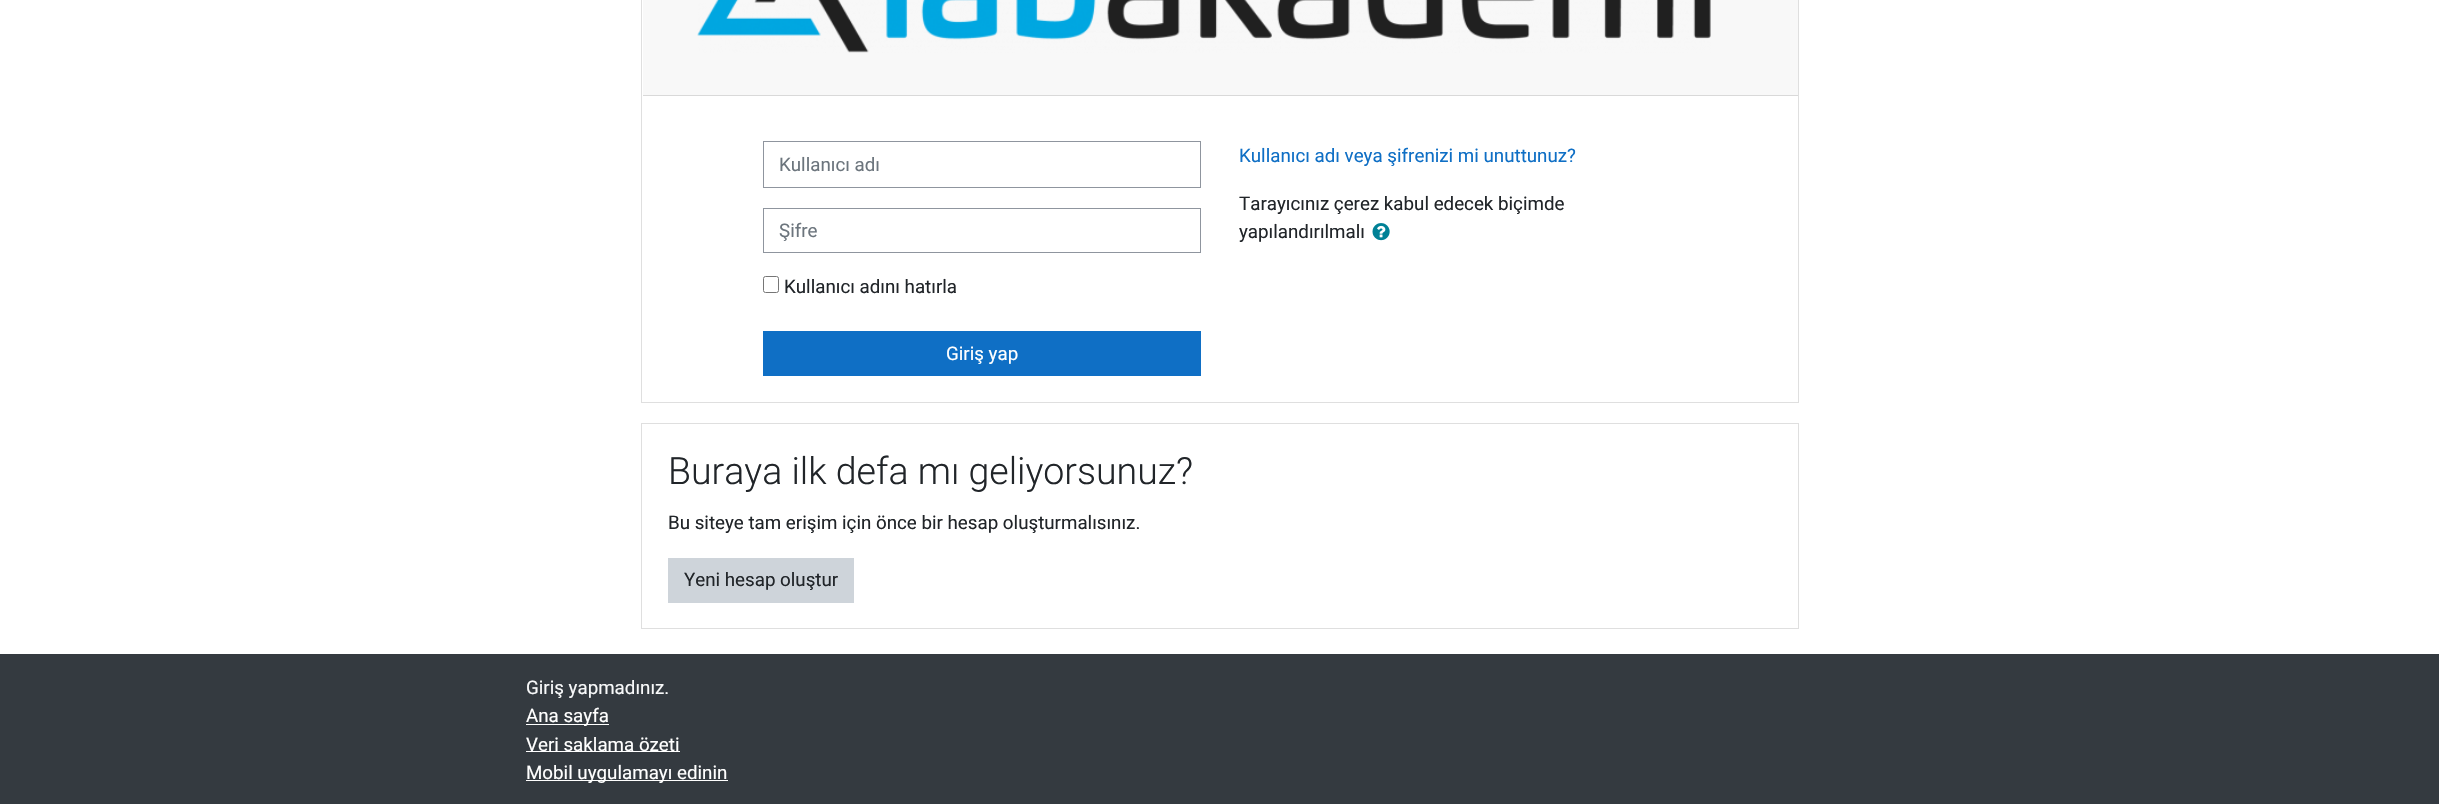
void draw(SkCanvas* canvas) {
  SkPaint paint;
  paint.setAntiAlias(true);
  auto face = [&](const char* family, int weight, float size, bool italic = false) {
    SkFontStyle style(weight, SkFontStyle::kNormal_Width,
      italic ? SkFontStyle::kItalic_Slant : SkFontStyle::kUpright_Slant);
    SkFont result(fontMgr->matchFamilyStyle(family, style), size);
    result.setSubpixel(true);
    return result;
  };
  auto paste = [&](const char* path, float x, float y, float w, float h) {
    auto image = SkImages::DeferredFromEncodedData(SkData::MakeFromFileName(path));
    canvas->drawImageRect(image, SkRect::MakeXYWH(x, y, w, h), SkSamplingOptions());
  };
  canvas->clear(0xffffffff);
  paint.setStroke(true);
  paint.setStrokeWidth(1);
  paint.setColor(0xffdfdfdf);
  canvas->drawRect(SkRect::MakeXYWH(641.5f, -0.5f, 1157, 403), paint);
  paint.setStroke(false);
  paint.setColor(0xfff8f8f8);
  canvas->drawRect(SkRect::MakeXYWH(643, 0, 1155, 95), paint);
  paint.setColor(0xffd9d9d9);
  canvas->drawRect(SkRect::MakeXYWH(643, 95, 1155, 1), paint);
  paste("img/1.png", 697, 0, 1014, 53);
  paint.setStroke(true);
  paint.setColor(0xff8f959e);
  canvas->drawRect(SkRect::MakeXYWH(763.5f, 141.5f, 437, 46), paint);
  canvas->drawRect(SkRect::MakeXYWH(763.5f, 208.5f, 437, 44), paint);
  paint.setColor(0xff767676);
  canvas->drawRoundRect(SkRect::MakeXYWH(763.5f, 276.5f, 15, 16), 2, 2, paint);
  paint.setStroke(false);
  paint.setColor(0xff0f6fc5);
  canvas->drawRect(SkRect::MakeXYWH(763, 331, 438, 45), paint);
  paste("img/2.png", 1372, 223, 18, 18);
  paint.setStroke(true);
  paint.setColor(0xffdfdfdf);
  canvas->drawRect(SkRect::MakeXYWH(641.5f, 423.5f, 1157, 205), paint);
  paint.setStroke(false);
  {
    const struct { float x, y, w, h; SkColor color; } items[] = {
      {668, 558, 186, 45, 0xffced4da},
      {0, 654, 2439, 150, 0xff343a40},
      {526, 724, 83, 1, 0xffffffff},
      {526, 751, 154, 1, 0xffffffff},
      {526, 780, 202, 1, 0xffffffff},
    };
    for (auto [x, y, w, h, color] : items) {
      paint.setColor(color);
      canvas->drawRect(SkRect::MakeXYWH(x, y, w, h), paint);
    }
  }
  auto f0 = face("Roboto", 400, 18.75f);
  paint.setColor(0xff6c757d);
  canvas->drawString("Kullanıcı adı", 779, 171, f0, paint);
  canvas->drawString("Şifre", 779, 237, f0, paint);
  paint.setColor(0xff212529);
  canvas->drawString("Kullanıcı adını hatırla", 784, 293, f0, paint);
  paint.setColor(0xffffffff);
  canvas->drawString("Giriş yap", 946, 360, f0, paint);
  paint.setColor(0xff0f6fc5);
  canvas->drawString("Kullanıcı adı veya şifrenizi mi unuttunuz?", 1239, 162, f0, paint);
  paint.setColor(0xff212529);
  canvas->drawString("Tarayıcınız çerez kabul edecek biçimde", 1239, 210, f0, paint);
  canvas->drawString("yapılandırılmalı", 1239, 238, f0, paint);
  auto f1 = face("Roboto", 300, 37.5f);
  canvas->drawString("Buraya ilk defa mı geliyorsunuz?", 668, 484, f1, paint);
  canvas->drawString("Bu siteye tam erişim için önce bir hesap oluşturmalısınız.", 668, 529, f0, paint);
  canvas->drawString("Yeni hesap oluştur", 684, 586, f0, paint);
  paint.setColor(0xfff8f9fa);
  canvas->drawString("Giriş yapmadınız.", 526, 694, f0, paint);
  paint.setColor(0xffffffff);
  {
    const struct { const char* s; float x, y; } items[] = {
      {"Ana sayfa", 526, 722},
      {"Veri saklama özeti", 526, 751},
      {"Mobil uygulamayı edinin", 526, 779},
    };
    for (auto [s, x, y] : items) {
      canvas->drawString(s, x, y, f0, paint);
    }
  }
}
